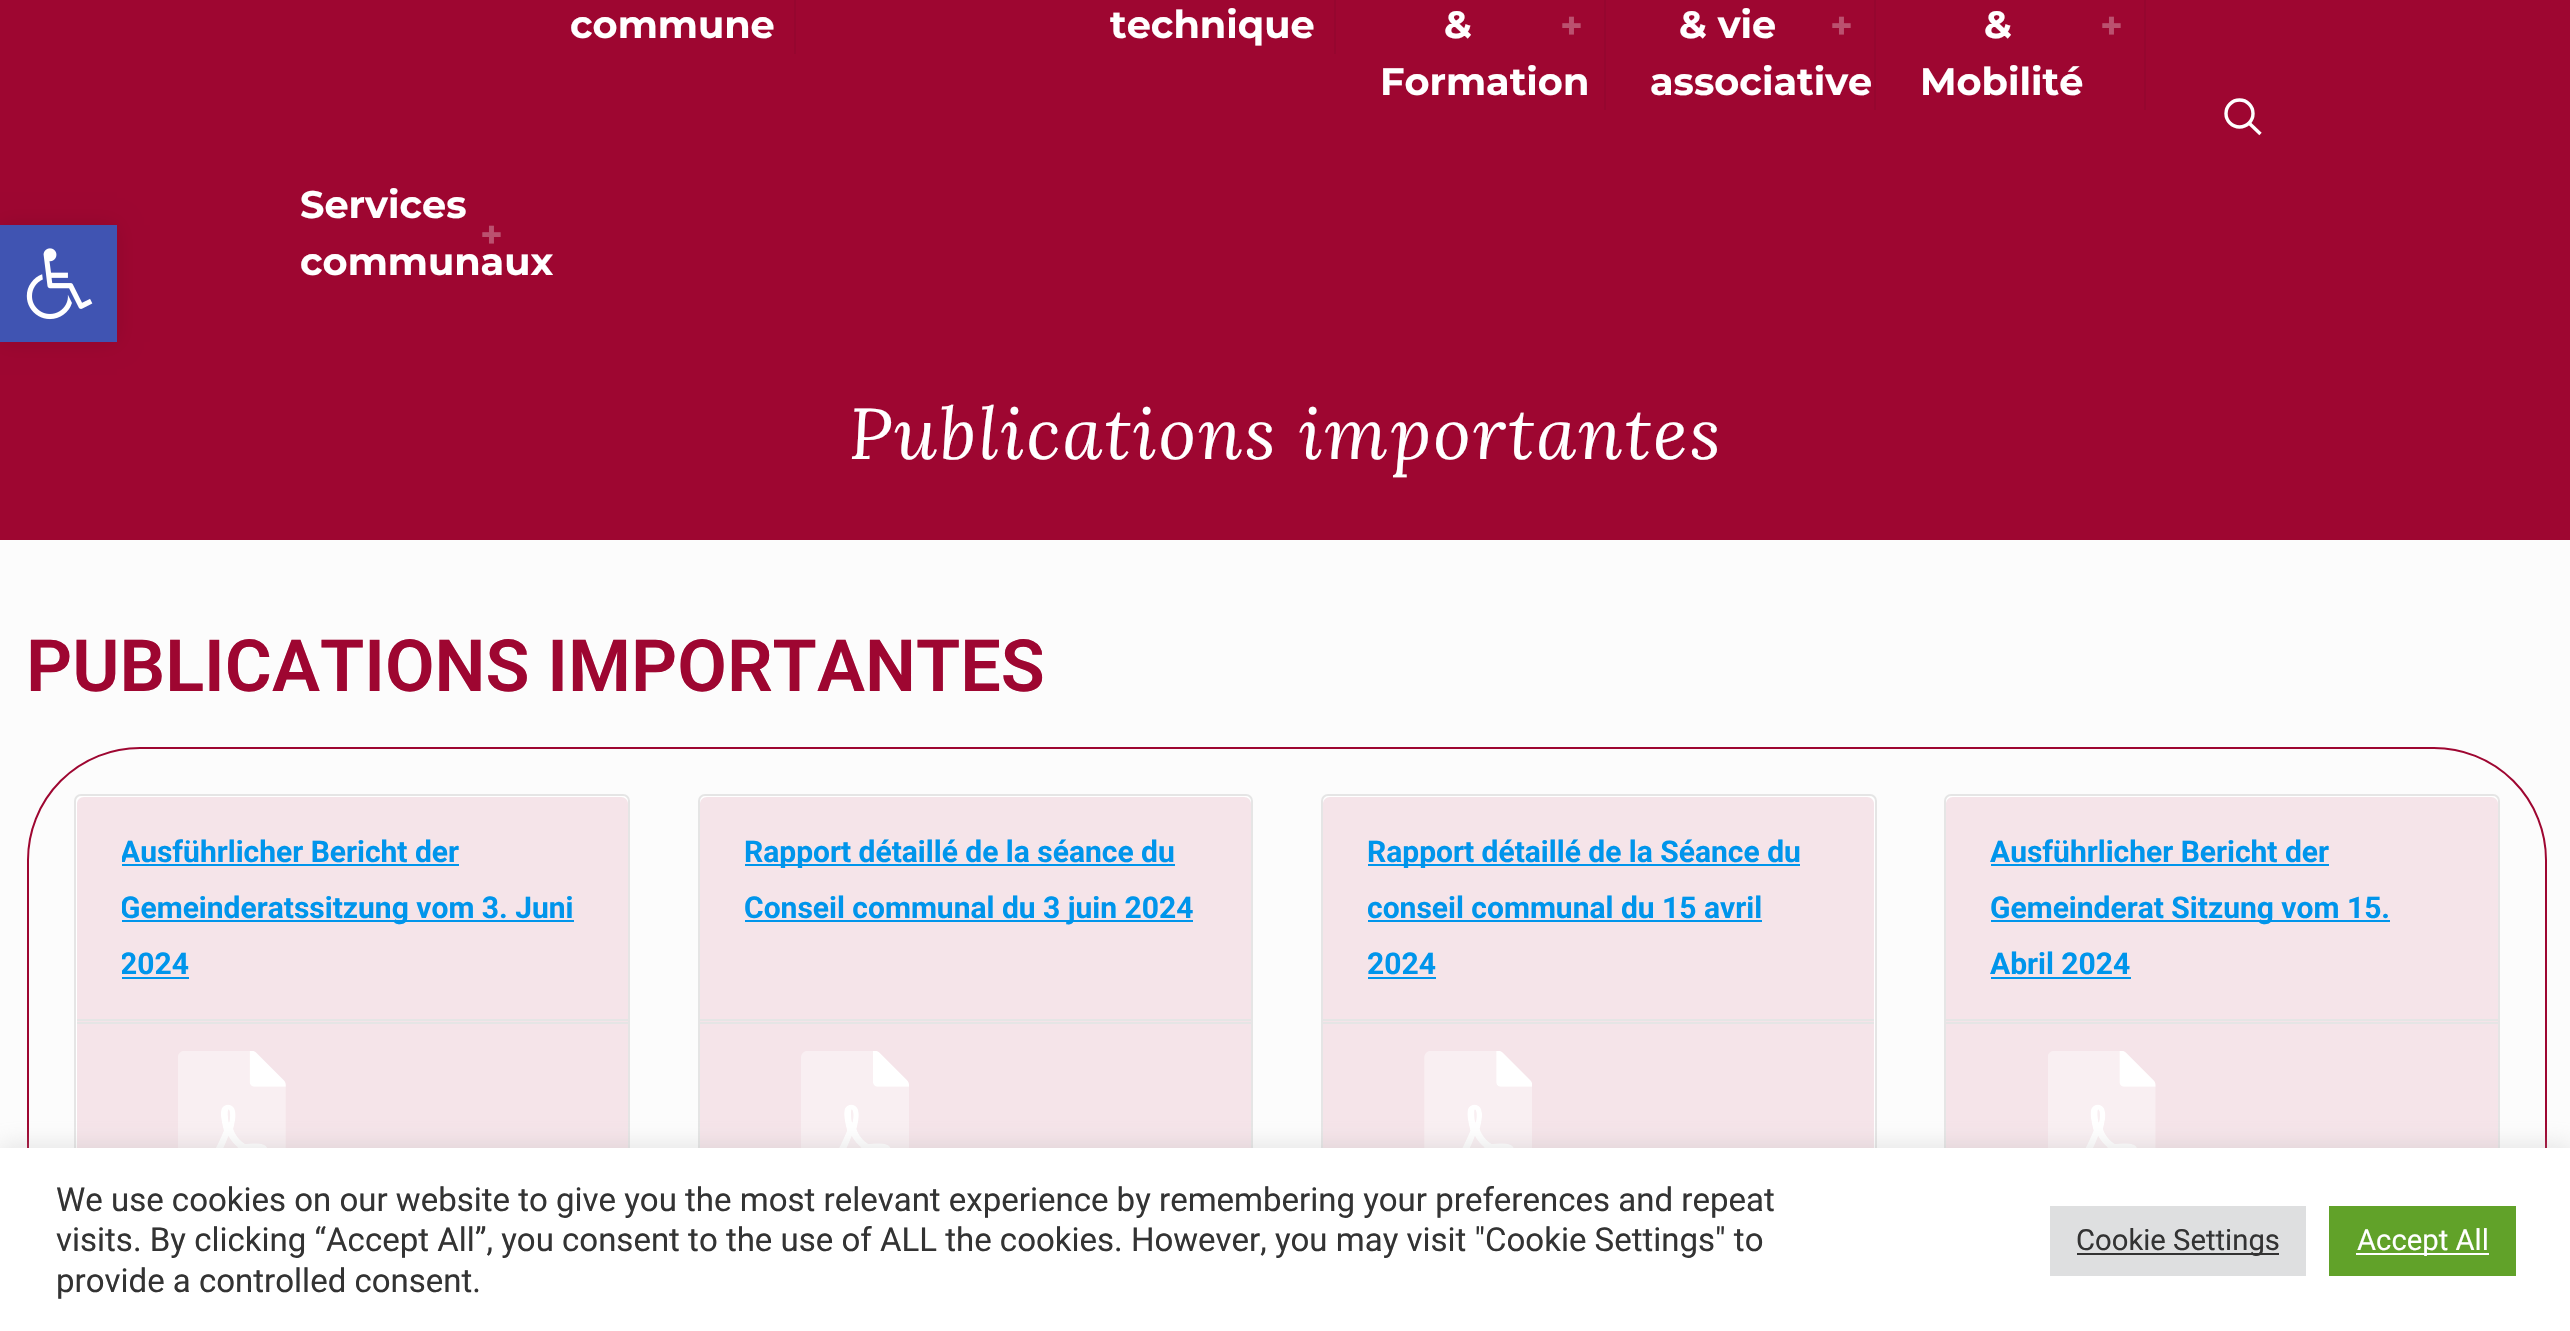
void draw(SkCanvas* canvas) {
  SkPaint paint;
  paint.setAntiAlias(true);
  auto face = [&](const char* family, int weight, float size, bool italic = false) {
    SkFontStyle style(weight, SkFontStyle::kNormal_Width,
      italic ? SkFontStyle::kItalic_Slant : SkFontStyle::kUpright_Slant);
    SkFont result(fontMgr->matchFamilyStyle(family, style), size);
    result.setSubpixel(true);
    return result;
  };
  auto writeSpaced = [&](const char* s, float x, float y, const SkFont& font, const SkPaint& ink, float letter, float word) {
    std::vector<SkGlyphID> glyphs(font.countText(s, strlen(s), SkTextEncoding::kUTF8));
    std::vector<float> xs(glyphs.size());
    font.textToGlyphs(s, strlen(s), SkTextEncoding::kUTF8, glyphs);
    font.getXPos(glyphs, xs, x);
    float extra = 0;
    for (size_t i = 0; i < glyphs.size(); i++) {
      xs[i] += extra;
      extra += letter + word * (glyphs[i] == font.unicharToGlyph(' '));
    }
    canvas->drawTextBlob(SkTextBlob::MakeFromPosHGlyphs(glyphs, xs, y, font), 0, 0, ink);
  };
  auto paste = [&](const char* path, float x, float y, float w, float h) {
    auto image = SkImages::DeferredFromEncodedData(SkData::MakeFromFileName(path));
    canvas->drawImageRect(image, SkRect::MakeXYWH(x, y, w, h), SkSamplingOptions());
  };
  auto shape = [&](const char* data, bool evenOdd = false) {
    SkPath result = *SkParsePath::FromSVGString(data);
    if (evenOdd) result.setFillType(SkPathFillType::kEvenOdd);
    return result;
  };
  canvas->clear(0xfffcfcfc);
  {
    const struct { float x, y, w, h; SkColor color; } items[] = {
      {0, 0, 2570, 540, 0xff9e0631},
      {794, 0, 2, 54, 0xff96062f},
      {1334, 0, 2, 54, 0xff96062f},
      {1604, 0, 2, 110, 0xff96062f},
      {1874, 0, 2, 110, 0xff96062f},
      {2144, 0, 2, 110, 0xff96062f},
    };
    for (auto [x, y, w, h, color] : items) {
      paint.setColor(color);
      canvas->drawRect(SkRect::MakeXYWH(x, y, w, h), paint);
    }
  }
  paint.setStroke(true);
  paint.setStrokeWidth(3.4f);
  paint.setColor(0xffffffff);
  canvas->drawCircle(2239.5f, 113.5f, 13.5f, paint);
  canvas->drawPath(shape("M2249 123L2260.5 134"), paint);
  paint.setStrokeWidth(2);
  paint.setColor(0xff9e0631);
  canvas->drawRoundRect(SkRect::MakeXYWH(28, 748, 2518, 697), 112, 112, paint);
  paint.setStroke(false);
  paint.setColor(0xffffffff);
  canvas->drawRoundRect(SkRect::MakeXYWH(75, 795, 554, 482), 6, 6, paint);
  paint.setStroke(true);
  paint.setColor(0xffe5e5e5);
  canvas->drawRoundRect(SkRect::MakeXYWH(75, 795, 554, 482), 6, 6, paint);
  paint.setStroke(false);
  paint.setColor(0xfff5e4e9);
  canvas->drawPath(shape("M84 797H621C625 797 628 800 628 804V1022H77V804C77 800 80 797 84 797Z"), paint);
  {
    const struct { float x, y, w, h; SkColor color; } items[] = {
      {77, 1019, 551, 2, 0xffe5e5e5},
      {122, 864, 337, 2, 0xff0095eb},
      {122, 920, 452, 2, 0xff0095eb},
      {122, 977, 67, 2, 0xff0095eb},
      {77, 1024, 551, 124, 0xfff5e4e9},
      {77, 1022, 551, 2, 0xffe5e5e5},
    };
    for (auto [x, y, w, h, color] : items) {
      paint.setColor(color);
      canvas->drawRect(SkRect::MakeXYWH(x, y, w, h), paint);
    }
  }
  paste("img/1.png", 178, 1051, 108, 97);
  paint.setColor(0xffffffff);
  canvas->drawRoundRect(SkRect::MakeXYWH(699, 795, 553, 482), 6, 6, paint);
  paint.setStroke(true);
  paint.setColor(0xffe5e5e5);
  canvas->drawRoundRect(SkRect::MakeXYWH(699, 795, 553, 482), 6, 6, paint);
  paint.setStroke(false);
  paint.setColor(0xfff5e4e9);
  canvas->drawPath(shape("M707 797H1244C1248 797 1251 800 1251 804V1022H700V804C700 800 703 797 707 797Z"), paint);
  {
    const struct { float x, y, w, h; SkColor color; } items[] = {
      {700, 1019, 551, 2, 0xffe5e5e5},
      {745, 864, 430, 2, 0xff0095eb},
      {745, 920, 448, 2, 0xff0095eb},
      {700, 1024, 551, 124, 0xfff5e4e9},
      {700, 1022, 551, 2, 0xffe5e5e5},
    };
    for (auto [x, y, w, h, color] : items) {
      paint.setColor(color);
      canvas->drawRect(SkRect::MakeXYWH(x, y, w, h), paint);
    }
  }
  paste("img/2.png", 801, 1051, 108, 97);
  paint.setColor(0xffffffff);
  canvas->drawRoundRect(SkRect::MakeXYWH(1322, 795, 554, 482), 6, 6, paint);
  paint.setStroke(true);
  paint.setColor(0xffe5e5e5);
  canvas->drawRoundRect(SkRect::MakeXYWH(1322, 795, 554, 482), 6, 6, paint);
  paint.setStroke(false);
  paint.setColor(0xfff5e4e9);
  canvas->drawPath(shape("M1330 797H1867C1871 797 1874 800 1874 804V1022H1323V804C1323 800 1326 797 1330 797Z"), paint);
  {
    const struct { float x, y, w, h; SkColor color; } items[] = {
      {1323, 1019, 551, 2, 0xffe5e5e5},
      {1368, 864, 432, 2, 0xff0095eb},
      {1368, 920, 394, 2, 0xff0095eb},
      {1368, 977, 68, 2, 0xff0095eb},
      {1323, 1024, 551, 124, 0xfff5e4e9},
      {1323, 1022, 551, 2, 0xffe5e5e5},
    };
    for (auto [x, y, w, h, color] : items) {
      paint.setColor(color);
      canvas->drawRect(SkRect::MakeXYWH(x, y, w, h), paint);
    }
  }
  paste("img/3.png", 1424, 1051, 108, 97);
  paint.setColor(0xffffffff);
  canvas->drawRoundRect(SkRect::MakeXYWH(1945, 795, 554, 482), 6, 6, paint);
  paint.setStroke(true);
  paint.setColor(0xffe5e5e5);
  canvas->drawRoundRect(SkRect::MakeXYWH(1945, 795, 554, 482), 6, 6, paint);
  paint.setStroke(false);
  paint.setColor(0xfff5e4e9);
  canvas->drawPath(shape("M1953 797H2491C2495 797 2498 800 2498 804V1022H1946V804C1946 800 1949 797 1953 797Z"), paint);
  {
    const struct { float x, y, w, h; SkColor color; } items[] = {
      {1946, 1019, 552, 2, 0xffe5e5e5},
      {1991, 864, 338, 2, 0xff0095eb},
      {1991, 920, 399, 2, 0xff0095eb},
      {1991, 977, 140, 2, 0xff0095eb},
      {1946, 1024, 552, 124, 0xfff5e4e9},
      {1946, 1022, 552, 2, 0xffe5e5e5},
    };
    for (auto [x, y, w, h, color] : items) {
      paint.setColor(color);
      canvas->drawRect(SkRect::MakeXYWH(x, y, w, h), paint);
    }
  }
  paste("img/4.png", 2048, 1051, 108, 97);
  paint.setColor(0x1a000000);
  paint.setMaskFilter(SkMaskFilter::MakeBlur(kNormal_SkBlurStyle, 11));
  canvas->drawRect(SkRect::MakeXYWH(0, 225, 117, 117), paint);
  paint.setMaskFilter(nullptr);
  paint.setColor(0xff4054b2);
  canvas->drawRect(SkRect::MakeXYWH(0, 225, 117, 117), paint);
  paste("img/5.png", 26, 248, 67, 72);
  paint.setColor(0x4dacabab);
  paint.setMaskFilter(SkMaskFilter::MakeBlur(kNormal_SkBlurStyle, 11));
  canvas->drawRect(SkRect::MakeXYWH(0, 1145, 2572, 185), paint);
  paint.setMaskFilter(nullptr);
  {
    const struct { float x, y, w, h; SkColor color; } items[] = {
      {0, 1148, 2570, 183, 0xffffffff},
      {2050, 1206, 256, 70, 0xffdedfe0},
      {2077, 1253, 202, 2, 0xff333333},
      {2329, 1206, 187, 70, 0xff61a229},
      {2356, 1253, 133, 2, 0xffffffff},
    };
    for (auto [x, y, w, h, color] : items) {
      paint.setColor(color);
      canvas->drawRect(SkRect::MakeXYWH(x, y, w, h), paint);
    }
  }
  auto f0 = face("Montserrat", 700, 38.25f);
  {
    const struct { const char* s; float x, y; } items[] = {
      {"commune", 570, 38},
      {"technique", 1110, 38},
      {"&", 1444, 38},
      {"Formation", 1380, 95},
    };
    for (auto [s, x, y] : items) {
      canvas->drawString(s, x, y, f0, paint);
    }
  }
  paint.setColor(0xffbb516f);
  canvas->drawString("+", 1560, 39, f0, paint);
  paint.setColor(0xffffffff);
  canvas->drawString("& vie", 1679, 38, f0, paint);
  canvas->drawString("associative", 1650, 95, f0, paint);
  paint.setColor(0xffbb516f);
  canvas->drawString("+", 1830, 39, f0, paint);
  paint.setColor(0xffffffff);
  canvas->drawString("&", 1984, 38, f0, paint);
  canvas->drawString("Mobilité", 1920, 95, f0, paint);
  paint.setColor(0xffbb516f);
  canvas->drawString("+", 2100, 39, f0, paint);
  paint.setColor(0xffffffff);
  canvas->drawString("Services", 300, 218, f0, paint);
  canvas->drawString("communaux", 300, 275, f0, paint);
  paint.setColor(0xffbb516f);
  canvas->drawString("+", 480, 248, f0, paint);
  auto f1 = face("Lora", 400, 72, true);
  paint.setColor(0xffffffff);
  writeSpaced("Publications importantes", 849, 459, f1, paint, 2.25f, 0);
  auto f2 = face("Roboto", 600, 72);
  paint.setColor(0xff9e0631);
  canvas->drawString("PUBLICATIONS IMPORTANTES", 26, 691, f2, paint);
  canvas->save();
  canvas->clipRect(SkRect::MakeXYWH(122, 824, 461, 168));
  auto f3 = face("Roboto", 700, 30);
  paint.setColor(0xff0095eb);
  {
    const struct { const char* s; float x, y; } items[] = {
      {"Ausführlicher Bericht der", 120, 862},
      {"Gemeinderatssitzung vom 3. Juni", 120, 918},
      {"2024", 120, 974},
    };
    for (auto [s, x, y] : items) {
      canvas->drawString(s, x, y, f3, paint);
    }
  }
  canvas->restore();
  canvas->drawString("Rapport détaillé de la séance du", 744, 862, f3, paint);
  canvas->save();
  canvas->clipRect(SkRect::MakeXYWH(745, 824, 461, 112));
  canvas->drawString("Conseil communal du 3 juin 2024", 744, 918, f3, paint);
  canvas->restore();
  canvas->drawString("Rapport détaillé de la Séance du", 1367, 862, f3, paint);
  canvas->save();
  canvas->clipRect(SkRect::MakeXYWH(1368, 824, 461, 168));
  canvas->drawString("conseil communal du 15 avril", 1367, 918, f3, paint);
  canvas->restore();
  {
    const struct { const char* s; float x, y; } items[] = {
      {"2024", 1367, 974},
      {"Ausführlicher Bericht der", 1990, 862},
      {"Gemeinderat Sitzung vom 15.", 1990, 918},
      {"Abril 2024", 1990, 974},
    };
    for (auto [s, x, y] : items) {
      canvas->drawString(s, x, y, f3, paint);
    }
  }
  auto f4 = face("Roboto", 400, 33);
  paint.setColor(0xff333333);
  {
    const struct { const char* s; float x, y; } items[] = {
      {"We use cookies on our website to give you the most relevant experience by remembering your preferences and repeat", 56, 1211},
      {"visits. By clicking “Accept All”, you consent to the use of ALL the cookies. However, you may visit \"Cookie Settings\" to", 56, 1251},
      {"provide a controlled consent.", 56, 1292},
    };
    for (auto [s, x, y] : items) {
      canvas->drawString(s, x, y, f4, paint);
    }
  }
  auto f5 = face("Roboto", 400, 29.25f);
  canvas->drawString("Cookie Settings", 2076, 1250, f5, paint);
  paint.setColor(0xffffffff);
  canvas->drawString("Accept All", 2357, 1250, f5, paint);
}
